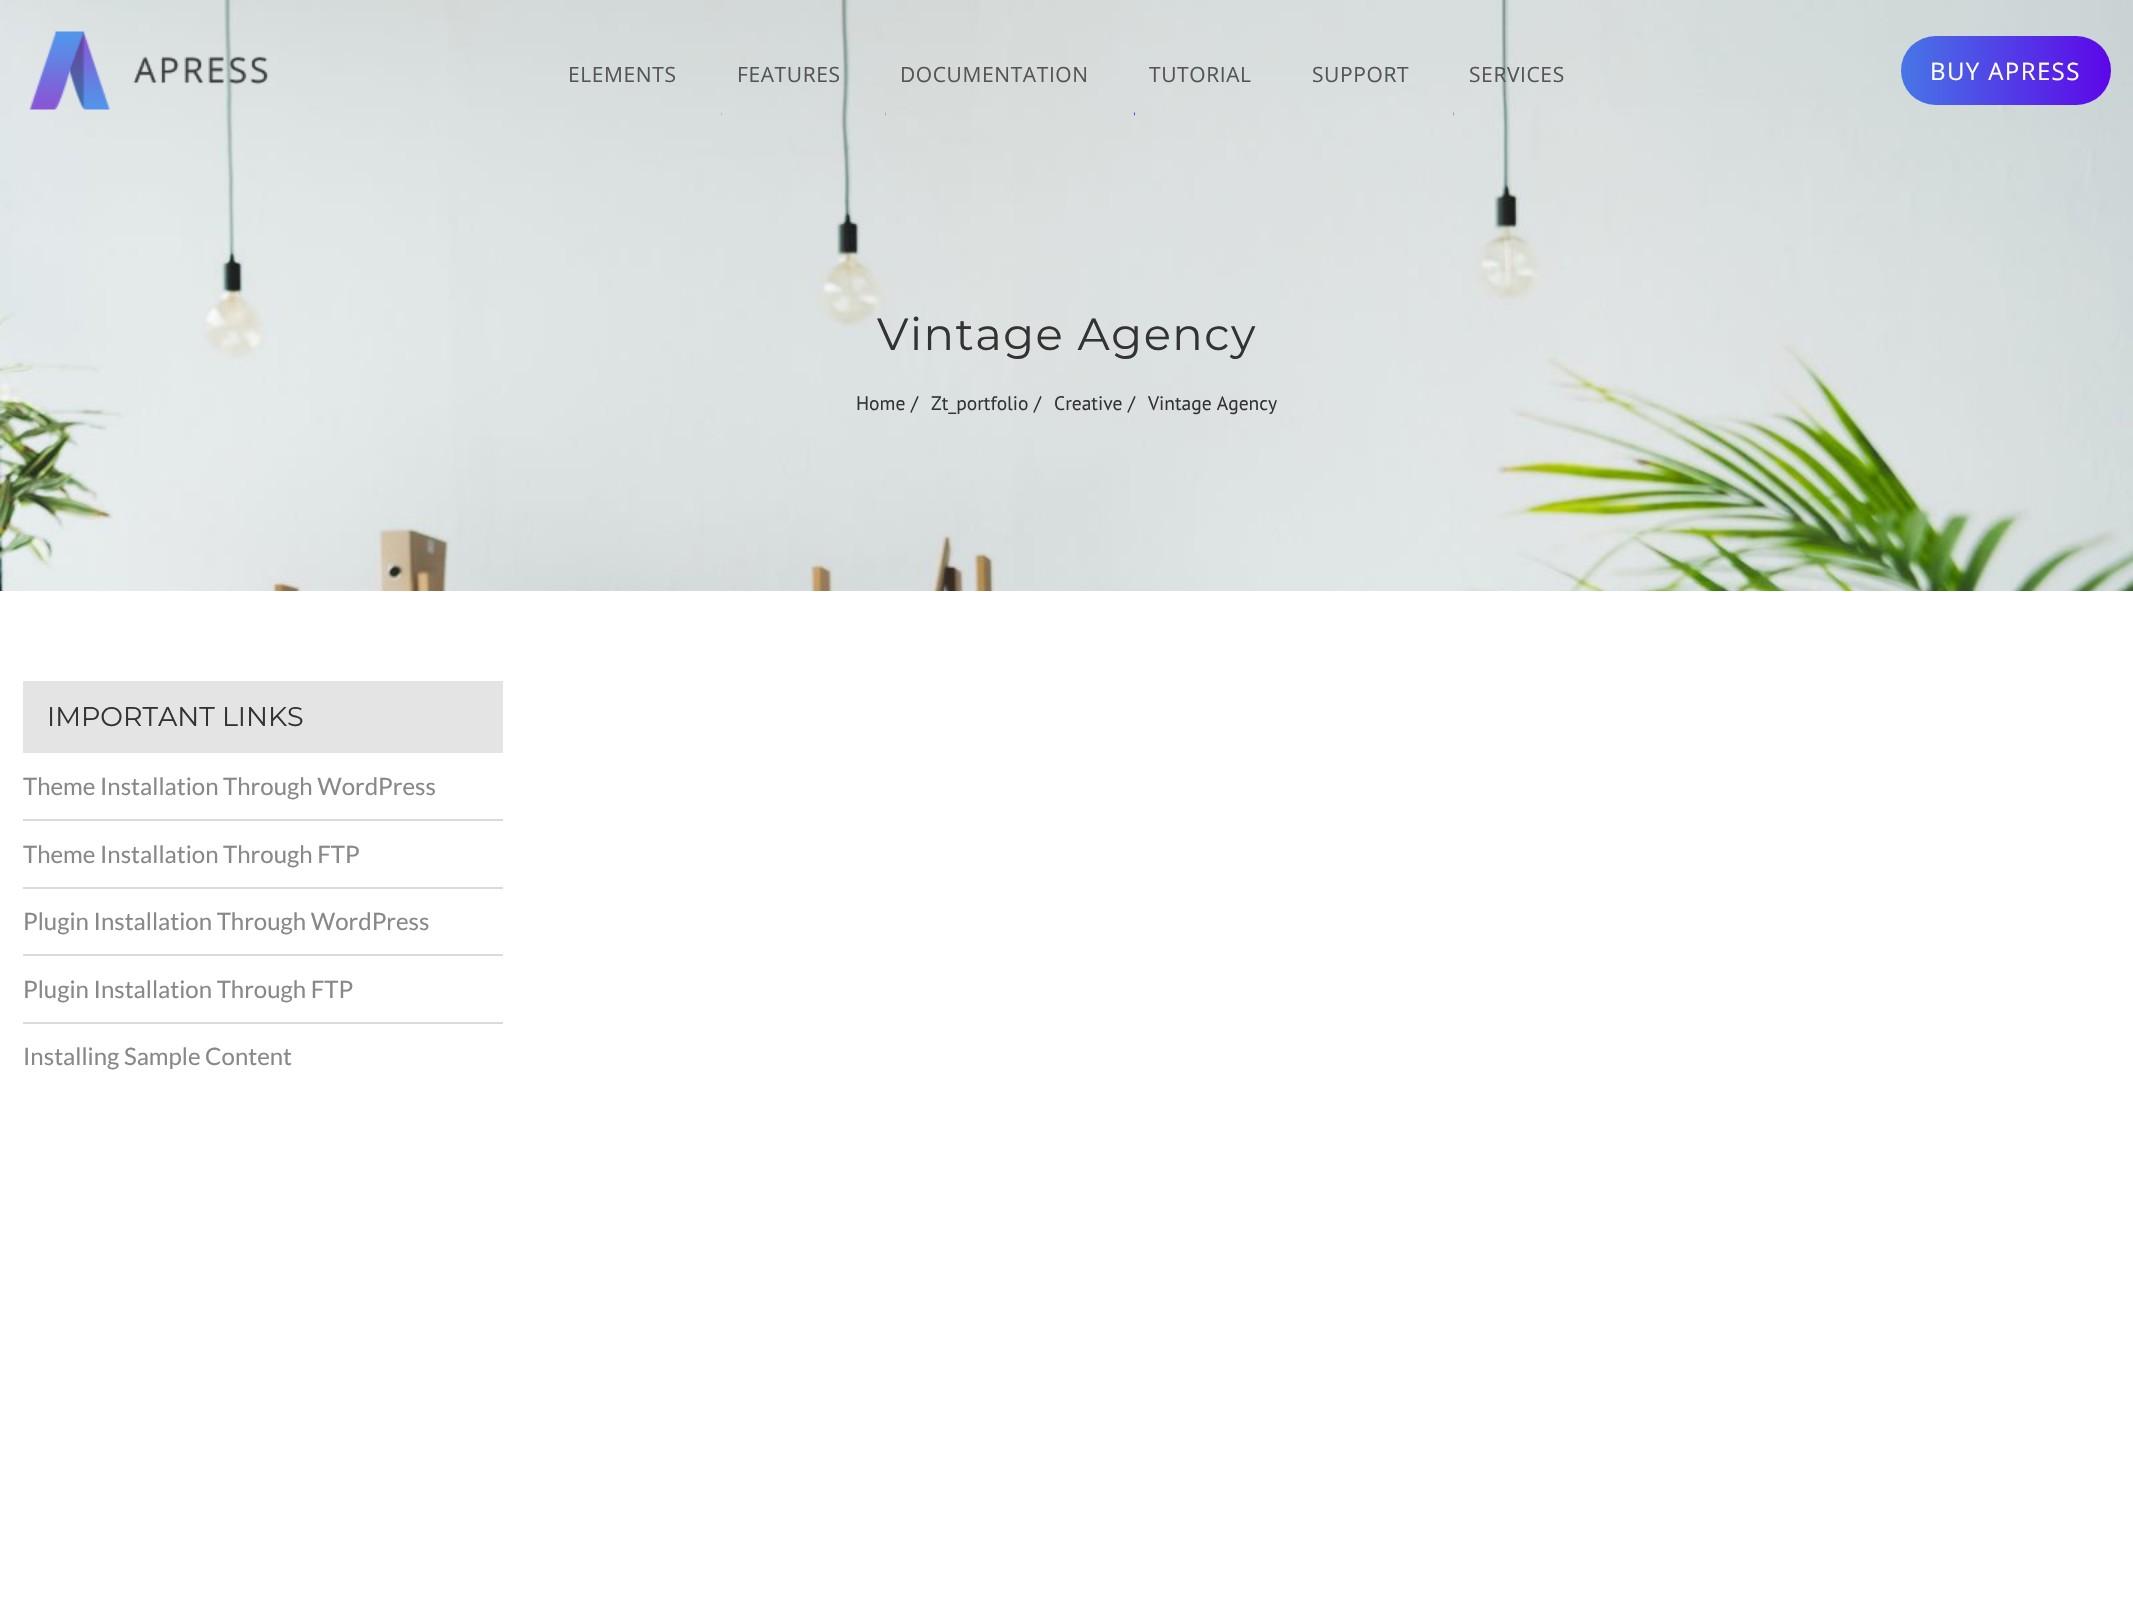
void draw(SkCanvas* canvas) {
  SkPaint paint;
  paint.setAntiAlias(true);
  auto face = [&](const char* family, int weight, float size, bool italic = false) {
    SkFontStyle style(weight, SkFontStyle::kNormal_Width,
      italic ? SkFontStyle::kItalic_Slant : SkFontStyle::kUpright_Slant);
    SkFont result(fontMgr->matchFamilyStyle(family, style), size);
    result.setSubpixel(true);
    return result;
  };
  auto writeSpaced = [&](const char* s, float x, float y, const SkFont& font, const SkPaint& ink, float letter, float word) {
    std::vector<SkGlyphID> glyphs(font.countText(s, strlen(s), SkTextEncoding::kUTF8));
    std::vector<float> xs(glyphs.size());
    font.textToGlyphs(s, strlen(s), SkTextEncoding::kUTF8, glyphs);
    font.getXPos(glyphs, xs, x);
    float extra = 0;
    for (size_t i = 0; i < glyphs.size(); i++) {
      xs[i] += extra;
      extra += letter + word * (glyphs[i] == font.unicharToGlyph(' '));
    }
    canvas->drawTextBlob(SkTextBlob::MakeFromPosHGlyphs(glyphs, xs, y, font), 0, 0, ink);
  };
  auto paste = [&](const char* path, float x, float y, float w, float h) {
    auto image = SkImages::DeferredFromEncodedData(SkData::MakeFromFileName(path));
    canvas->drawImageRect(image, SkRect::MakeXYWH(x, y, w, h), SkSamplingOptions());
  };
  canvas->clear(0xffffffff);
  paste("img/6.png", 0, 0, 2133, 591);
  paste("img/1.png", 29, 31, 240, 79);
  paste("img/2.png", 721, 112, 1, 4);
  paste("img/3.png", 885, 112, 1, 4);
  paste("img/4.png", 1134, 112, 1, 4);
  paste("img/5.png", 1453, 112, 1, 4);
  {
    const SkColor colors[] = {0xff4776e6, 0xff5d06e8};
    const float stops[] = {0, 1};
    const SkPoint ends[] = {{1901, 71}, {2111, 70}};
    paint.setShader(SkGradientShader::MakeLinear(ends, colors, stops, 2, SkTileMode::kClamp));
    paint.setAlpha(255);
  }
  canvas->drawRoundRect(SkRect::MakeXYWH(1901, 36, 210, 69), 34.5f, 34.5f, paint);
  paint.setShader(nullptr);
  {
    const struct { float x, y, w, h; SkColor color; } items[] = {
      {23, 681, 480, 72, 0xffe4e4e4},
      {23, 819, 480, 2, 0xffdadada},
      {23, 887, 480, 2, 0xffdadada},
      {23, 954, 480, 2, 0xffdadada},
      {23, 1022, 480, 2, 0xffdadada},
    };
    for (auto [x, y, w, h, color] : items) {
      paint.setColor(color);
      canvas->drawRect(SkRect::MakeXYWH(x, y, w, h), paint);
    }
  }
  auto f0 = face("Open Sans", 400, 21);
  paint.setColor(0xff555555);
  {
    const struct { const char* s; float x, y; } items[] = {
      {"ELEMENTS", 568, 82},
      {"FEATURES", 737, 82},
      {"DOCUMENTATION", 900, 82},
      {"TUTORIAL", 1149, 82},
      {"SUPPORT", 1312, 82},
      {"SERVICES", 1469, 82},
    };
    for (auto [s, x, y] : items) {
      writeSpaced(s, x, y, f0, paint, 0.6f, 0);
    }
  }
  auto f1 = face("Open Sans", 400, 24);
  paint.setColor(0xffffffff);
  writeSpaced("BUY APRESS", 1930, 80, f1, paint, 1.4f, 0);
  auto f2 = face("Montserrat", 400, 45);
  paint.setColor(0xff333333);
  writeSpaced("Vintage Agency", 877, 350, f2, paint, 1.5f, 0);
  auto f3 = face("PT Sans", 400, 19.5f);
  {
    const struct { const char* s; float x, y; } items[] = {
      {"Home", 856, 410},
      {"/", 911, 410},
      {"Zt_portfolio", 931, 410},
      {"/", 1034, 410},
      {"Creative", 1054, 410},
      {"/", 1128, 410},
      {"Vintage Agency", 1148, 410},
    };
    for (auto [s, x, y] : items) {
      canvas->drawString(s, x, y, f3, paint);
    }
  }
  auto f4 = face("Montserrat", 400, 27);
  canvas->drawString("IMPORTANT LINKS", 47, 726, f4, paint);
  auto f5 = face("Lato", 400, 24);
  paint.setColor(0xff888888);
  {
    const struct { const char* s; float x, y; } items[] = {
      {"Theme Installation Through WordPress", 23, 795},
      {"Theme Installation Through FTP", 23, 863},
      {"Plugin Installation Through WordPress", 23, 930},
      {"Plugin Installation Through FTP", 23, 998},
      {"Installing Sample Content", 23, 1065},
    };
    for (auto [s, x, y] : items) {
      canvas->drawString(s, x, y, f5, paint);
    }
  }
}
